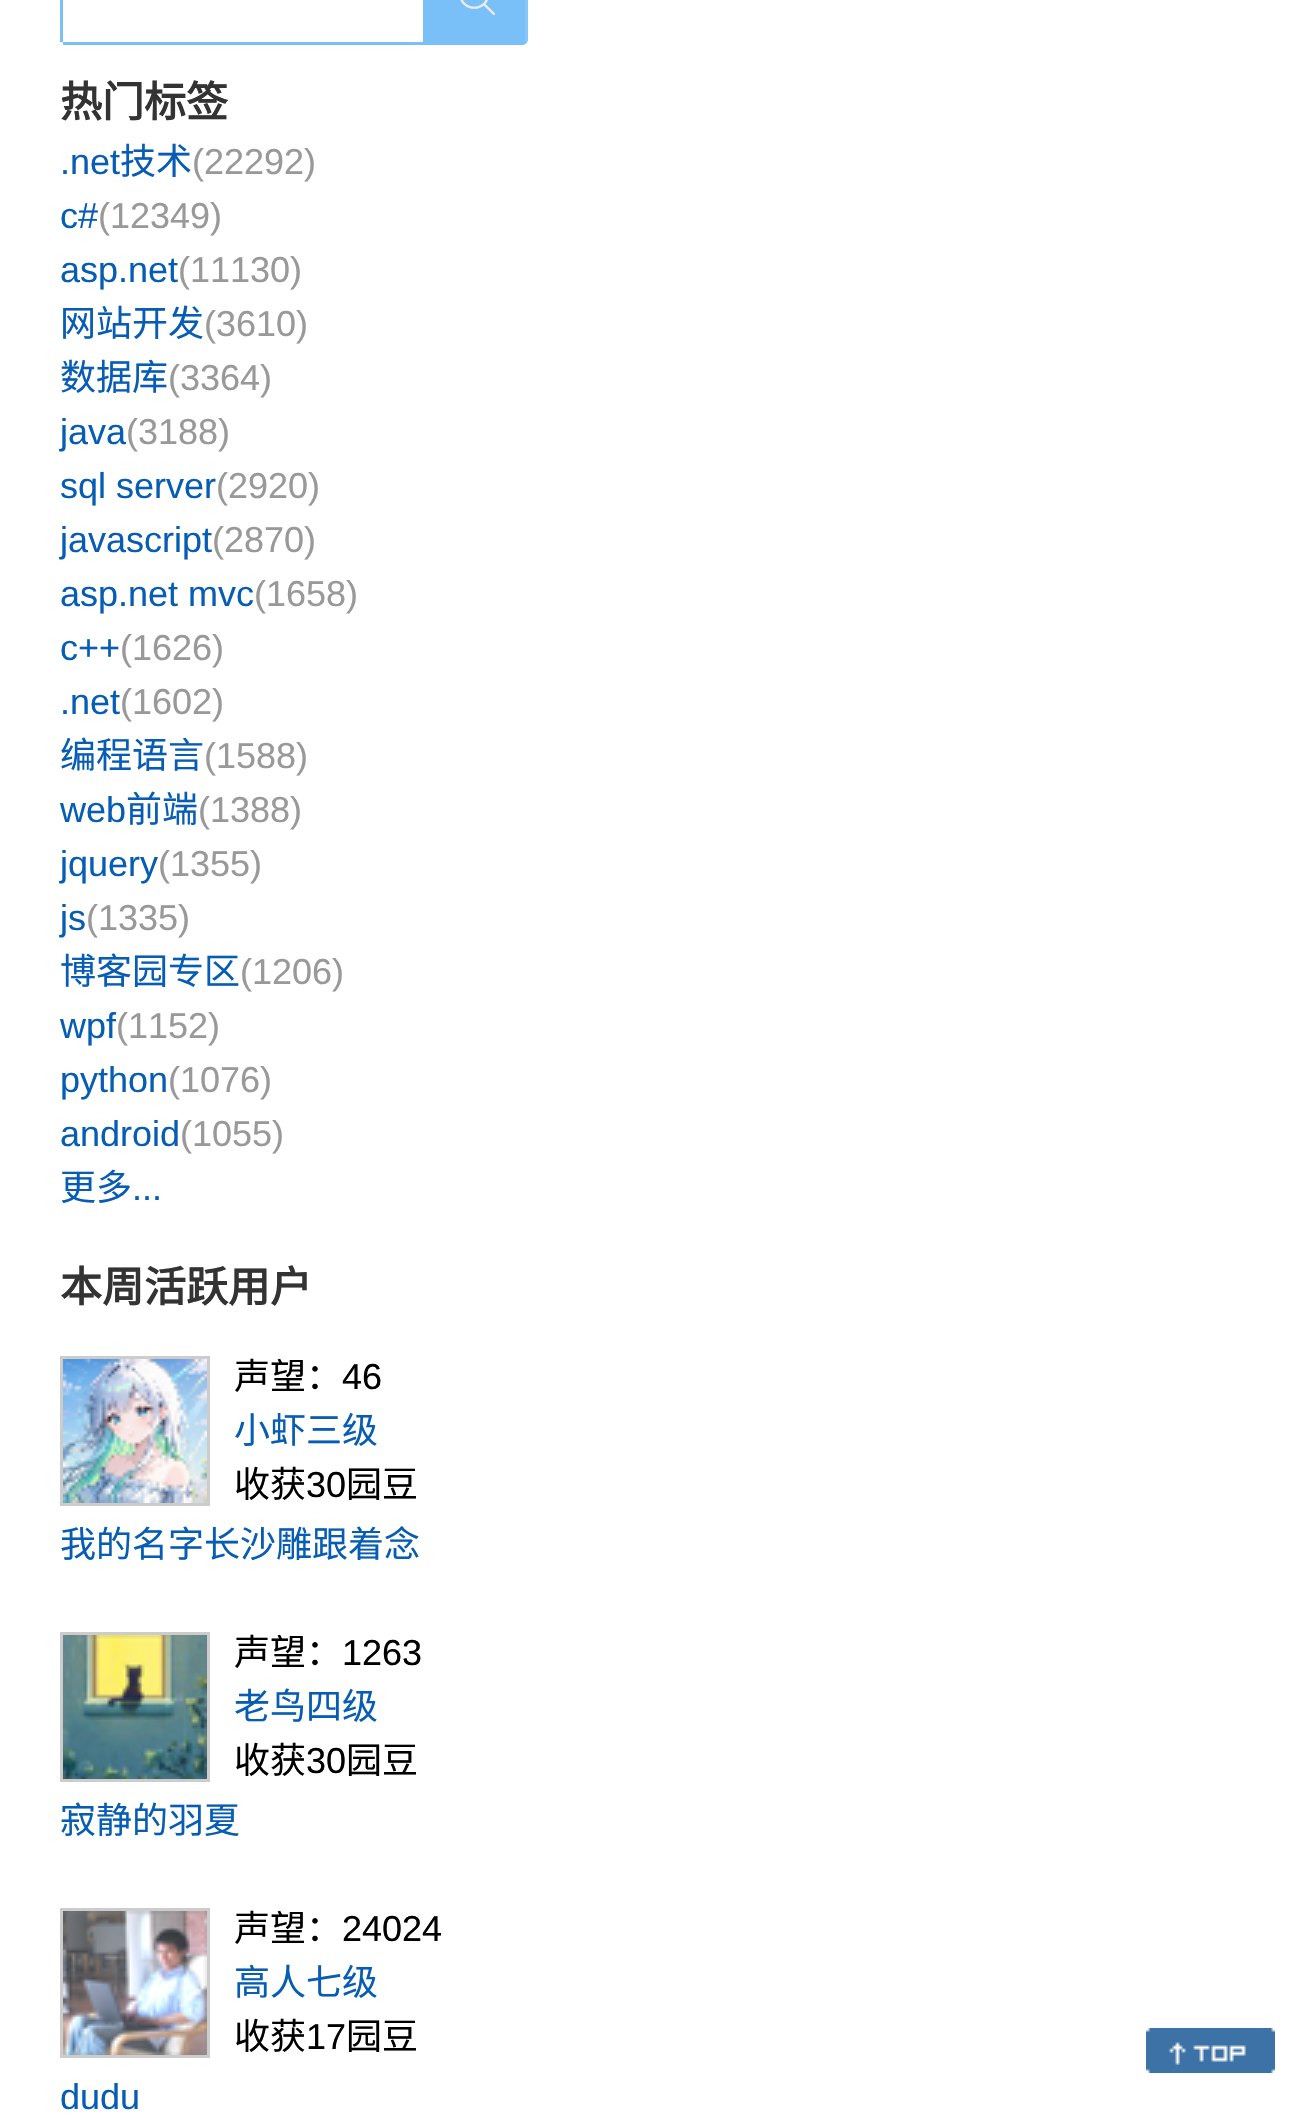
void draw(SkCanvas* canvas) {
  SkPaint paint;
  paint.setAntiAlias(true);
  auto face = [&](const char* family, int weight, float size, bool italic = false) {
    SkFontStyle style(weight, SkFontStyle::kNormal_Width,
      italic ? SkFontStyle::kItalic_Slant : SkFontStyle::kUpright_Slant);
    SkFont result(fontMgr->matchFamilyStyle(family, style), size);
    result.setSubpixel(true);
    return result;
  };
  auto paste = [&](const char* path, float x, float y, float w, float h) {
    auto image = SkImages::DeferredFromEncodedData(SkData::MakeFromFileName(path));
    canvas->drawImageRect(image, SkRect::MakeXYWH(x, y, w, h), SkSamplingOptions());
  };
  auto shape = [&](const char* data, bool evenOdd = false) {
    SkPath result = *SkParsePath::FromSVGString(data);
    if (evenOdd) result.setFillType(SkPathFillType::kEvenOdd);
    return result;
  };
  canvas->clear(0xffffffff);
  paint.setColor(0xff7ac0f8);
  canvas->drawRect(SkRect::MakeXYWH(63, 42, 360, 3), paint);
  canvas->drawRect(SkRect::MakeXYWH(60, 0, 3, 42), paint);
  canvas->drawPath(shape("M423-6H522C525.5-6 528-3.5 528 0V39C528 42.5 525.5 45 522 45H423Z"), paint);
  paste("img/1.png", 460, 0, 35, 15);
  paint.setColor(0x1aecf6ff);
  canvas->drawRect(SkRect::MakeXYWH(525, 0, 3, 42), paint);
  paint.setStroke(true);
  paint.setStrokeWidth(3);
  paint.setColor(0xffcccccc);
  canvas->drawRect(SkRect::MakeXYWH(61.5f, 1357.5f, 147, 147), paint);
  paste("img/2.png", 63, 1359, 144, 144);
  canvas->drawRect(SkRect::MakeXYWH(61.5f, 1633.5f, 147, 147), paint);
  paste("img/3.png", 63, 1635, 144, 144);
  canvas->drawRect(SkRect::MakeXYWH(61.5f, 1909.5f, 147, 147), paint);
  paste("img/4.png", 63, 1911, 144, 144);
  paste("img/5.png", 1146, 2028, 129, 45);
  auto f0 = face("Noto Sans CJK SC", 700, 42);
  paint.setStroke(false);
  paint.setColor(0xff333333);
  canvas->drawString("热门标签", 60, 117, f0, paint);
  auto f1 = face("Liberation Sans", 400, 36);
  paint.setColor(0xff075db3);
  canvas->drawString(".net", 60, 174, f1, paint);
  auto f2 = face("Noto Sans CJK SC", 400, 36);
  canvas->drawString("技术", 120, 174, f2, paint);
  paint.setColor(0xff999999);
  canvas->drawString("(22292)", 192, 174, f1, paint);
  paint.setColor(0xff075db3);
  canvas->drawString("c#", 60, 228, f1, paint);
  paint.setColor(0xff999999);
  canvas->drawString("(12349)", 98, 228, f1, paint);
  paint.setColor(0xff075db3);
  canvas->drawString("asp.net", 60, 282, f1, paint);
  paint.setColor(0xff999999);
  canvas->drawString("(11130)", 178, 282, f1, paint);
  paint.setColor(0xff075db3);
  canvas->drawString("网站开发", 60, 336, f2, paint);
  paint.setColor(0xff999999);
  canvas->drawString("(3610)", 204, 336, f1, paint);
  paint.setColor(0xff075db3);
  canvas->drawString("数据库", 60, 390, f2, paint);
  paint.setColor(0xff999999);
  canvas->drawString("(3364)", 168, 390, f1, paint);
  paint.setColor(0xff075db3);
  canvas->drawString("java", 60, 444, f1, paint);
  paint.setColor(0xff999999);
  canvas->drawString("(3188)", 126, 444, f1, paint);
  paint.setColor(0xff075db3);
  canvas->drawString("sql server", 60, 498, f1, paint);
  paint.setColor(0xff999999);
  canvas->drawString("(2920)", 216, 498, f1, paint);
  paint.setColor(0xff075db3);
  canvas->drawString("javascript", 60, 552, f1, paint);
  paint.setColor(0xff999999);
  canvas->drawString("(2870)", 212, 552, f1, paint);
  paint.setColor(0xff075db3);
  canvas->drawString("asp.net mvc", 60, 606, f1, paint);
  paint.setColor(0xff999999);
  canvas->drawString("(1658)", 254, 606, f1, paint);
  paint.setColor(0xff075db3);
  canvas->drawString("c++", 60, 660, f1, paint);
  paint.setColor(0xff999999);
  canvas->drawString("(1626)", 120, 660, f1, paint);
  paint.setColor(0xff075db3);
  canvas->drawString(".net", 60, 714, f1, paint);
  paint.setColor(0xff999999);
  canvas->drawString("(1602)", 120, 714, f1, paint);
  paint.setColor(0xff075db3);
  canvas->drawString("编程语言", 60, 768, f2, paint);
  paint.setColor(0xff999999);
  canvas->drawString("(1588)", 204, 768, f1, paint);
  paint.setColor(0xff075db3);
  canvas->drawString("web", 60, 822, f1, paint);
  canvas->drawString("前端", 126, 822, f2, paint);
  paint.setColor(0xff999999);
  canvas->drawString("(1388)", 198, 822, f1, paint);
  paint.setColor(0xff075db3);
  canvas->drawString("jquery", 60, 876, f1, paint);
  paint.setColor(0xff999999);
  canvas->drawString("(1355)", 158, 876, f1, paint);
  paint.setColor(0xff075db3);
  canvas->drawString("js", 60, 930, f1, paint);
  paint.setColor(0xff999999);
  canvas->drawString("(1335)", 86, 930, f1, paint);
  paint.setColor(0xff075db3);
  canvas->drawString("博客园专区", 60, 984, f2, paint);
  paint.setColor(0xff999999);
  canvas->drawString("(1206)", 240, 984, f1, paint);
  paint.setColor(0xff075db3);
  canvas->drawString("wpf", 60, 1038, f1, paint);
  paint.setColor(0xff999999);
  canvas->drawString("(1152)", 116, 1038, f1, paint);
  paint.setColor(0xff075db3);
  canvas->drawString("python", 60, 1092, f1, paint);
  paint.setColor(0xff999999);
  canvas->drawString("(1076)", 168, 1092, f1, paint);
  paint.setColor(0xff075db3);
  canvas->drawString("android", 60, 1146, f1, paint);
  paint.setColor(0xff999999);
  canvas->drawString("(1055)", 180, 1146, f1, paint);
  paint.setColor(0xff075db3);
  canvas->drawString("更多", 60, 1200, f2, paint);
  canvas->drawString("...", 132, 1200, f1, paint);
  paint.setColor(0xff333333);
  canvas->drawString("本周活跃用户", 60, 1302, f0, paint);
  paint.setColor(0xff000000);
  canvas->drawString("声望：", 234, 1389, f2, paint);
  canvas->drawString("46", 342, 1389, f1, paint);
  paint.setColor(0xff075db3);
  canvas->drawString("小虾三级", 234, 1443, f2, paint);
  paint.setColor(0xff000000);
  canvas->drawString("收获", 234, 1497, f2, paint);
  canvas->drawString("30", 306, 1497, f1, paint);
  canvas->drawString("园豆", 346, 1497, f2, paint);
  paint.setColor(0xff075db3);
  canvas->drawString("我的名字长沙雕跟着念", 60, 1557, f2, paint);
  paint.setColor(0xff000000);
  canvas->drawString("声望：", 234, 1665, f2, paint);
  canvas->drawString("1263", 342, 1665, f1, paint);
  paint.setColor(0xff075db3);
  canvas->drawString("老鸟四级", 234, 1719, f2, paint);
  paint.setColor(0xff000000);
  canvas->drawString("收获", 234, 1773, f2, paint);
  canvas->drawString("30", 306, 1773, f1, paint);
  canvas->drawString("园豆", 346, 1773, f2, paint);
  paint.setColor(0xff075db3);
  canvas->drawString("寂静的羽夏", 60, 1833, f2, paint);
  paint.setColor(0xff000000);
  canvas->drawString("声望：", 234, 1941, f2, paint);
  canvas->drawString("24024", 342, 1941, f1, paint);
  paint.setColor(0xff075db3);
  canvas->drawString("高人七级", 234, 1995, f2, paint);
  paint.setColor(0xff000000);
  canvas->drawString("收获", 234, 2049, f2, paint);
  canvas->drawString("17", 306, 2049, f1, paint);
  canvas->drawString("园豆", 346, 2049, f2, paint);
  paint.setColor(0xff075db3);
  canvas->drawString("dudu", 60, 2109, f1, paint);
}
